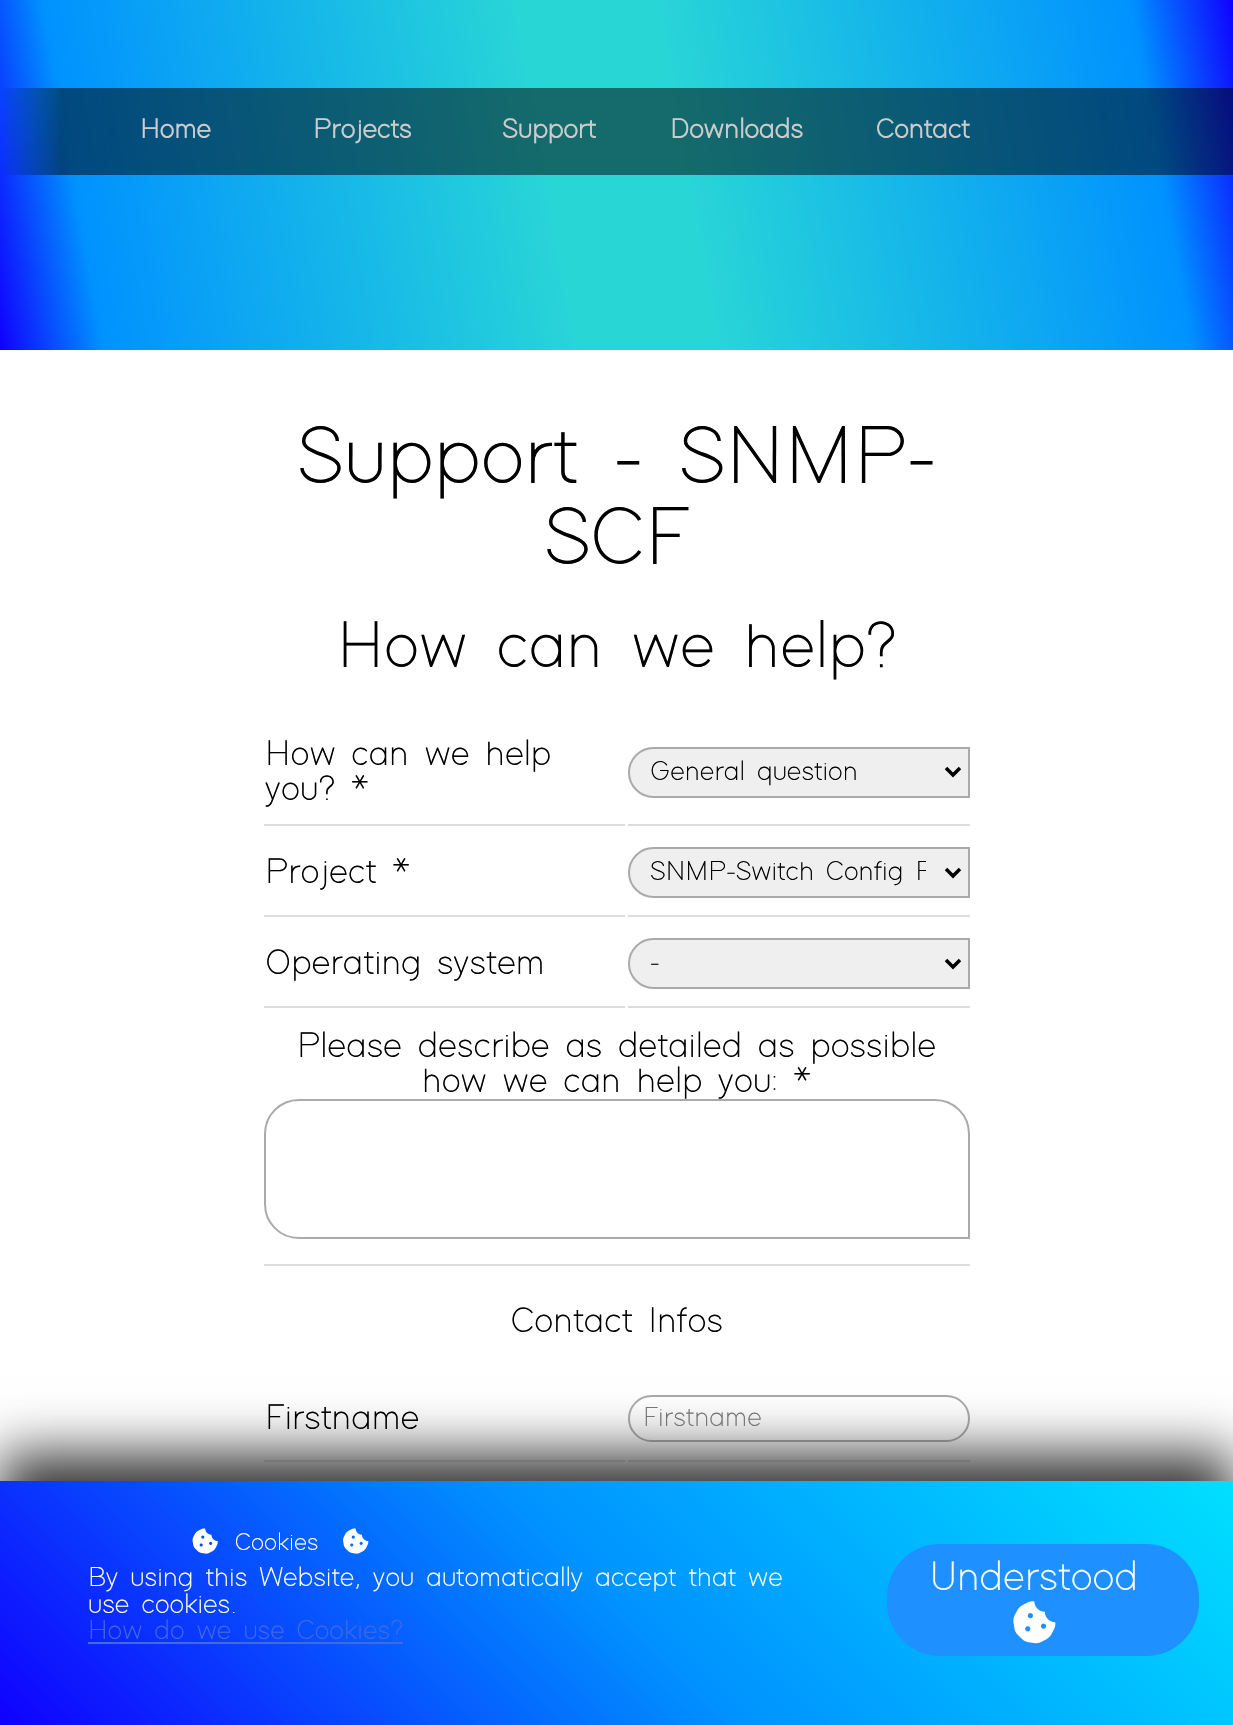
void draw(SkCanvas* canvas) {
  SkPaint paint;
  paint.setAntiAlias(true);
  auto face = [&](const char* family, int weight, float size, bool italic = false) {
    SkFontStyle style(weight, SkFontStyle::kNormal_Width,
      italic ? SkFontStyle::kItalic_Slant : SkFontStyle::kUpright_Slant);
    SkFont result(fontMgr->matchFamilyStyle(family, style), size);
    result.setSubpixel(true);
    return result;
  };
  auto paste = [&](const char* path, float x, float y, float w, float h) {
    auto image = SkImages::DeferredFromEncodedData(SkData::MakeFromFileName(path));
    canvas->drawImageRect(image, SkRect::MakeXYWH(x, y, w, h), SkSamplingOptions());
  };
  auto shape = [&](const char* data, bool evenOdd = false) {
    SkPath result = *SkParsePath::FromSVGString(data);
    if (evenOdd) result.setFillType(SkPathFillType::kEvenOdd);
    return result;
  };
  canvas->clear(0xffffffff);
  {
    const SkColor colors[] = {0xff1000ff, 0xff0092ff, 0xff29d6d6, 0xff29d6d6, 0xff0092ff, 0xff1000ff};
    const float stops[] = {0, 0.08f, 0.45f, 0.55f, 0.92f, 1};
    const SkPoint ends[] = {{-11, 286}, {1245, 64}};
    paint.setShader(SkGradientShader::MakeLinear(ends, colors, stops, 6, SkTileMode::kClamp));
    paint.setAlpha(255);
  }
  canvas->drawRect(SkRect::MakeXYWH(0, 0, 1233, 350), paint);
  {
    const SkColor colors[] = {0x00000000, 0x80000000};
    const float stops[] = {0, 0.05f};
    const SkPoint ends[] = {{0, 131}, {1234, 131}};
    paint.setShader(SkGradientShader::MakeLinear(ends, colors, stops, 2, SkTileMode::kClamp));
    paint.setAlpha(255);
  }
  canvas->drawRect(SkRect::MakeXYWH(3, 88, 1230, 87), paint);
  paint.setShader(nullptr);
  paint.setColor(0xffdcdcdc);
  canvas->drawRect(SkRect::MakeXYWH(264, 824, 361, 2), paint);
  canvas->drawRect(SkRect::MakeXYWH(628, 824, 342, 2), paint);
  paint.setColor(0xffefefef);
  canvas->drawPath(shape("M653.5 748H969V797H653.5C640 797 629 786 629 772.5C629 759 640 748 653.5 748Z"), paint);
  paint.setStroke(true);
  paint.setStrokeWidth(2);
  paint.setColor(0xffaaaaaa);
  canvas->drawPath(shape("M653.5 748H969V797H653.5C640 797 629 786 629 772.5C629 759 640 748 653.5 748Z"), paint);
  paint.setStrokeWidth(3.5f);
  paint.setColor(0xff000000);
  canvas->drawPath(shape("M946 768L953 775L960 768"), paint);
  paint.setStroke(false);
  paint.setColor(0xffdcdcdc);
  canvas->drawRect(SkRect::MakeXYWH(264, 915, 361, 2), paint);
  canvas->drawRect(SkRect::MakeXYWH(628, 915, 342, 2), paint);
  paint.setColor(0xffefefef);
  canvas->drawPath(shape("M653.5 848H969V897H653.5C640 897 629 886 629 872.5C629 859 640 848 653.5 848Z"), paint);
  paint.setStroke(true);
  paint.setStrokeWidth(2);
  paint.setColor(0xffaaaaaa);
  canvas->drawPath(shape("M653.5 848H969V897H653.5C640 897 629 886 629 872.5C629 859 640 848 653.5 848Z"), paint);
  paint.setStrokeWidth(3.5f);
  paint.setColor(0xff000000);
  canvas->drawPath(shape("M946 869L953 876L960 869"), paint);
  paint.setStroke(false);
  paint.setColor(0xffdcdcdc);
  canvas->drawRect(SkRect::MakeXYWH(264, 1006, 361, 2), paint);
  canvas->drawRect(SkRect::MakeXYWH(628, 1006, 342, 2), paint);
  paint.setColor(0xffefefef);
  canvas->drawPath(shape("M653.5 939H969V988H653.5C640 988 629 977 629 963.5C629 950 640 939 653.5 939Z"), paint);
  paint.setStroke(true);
  paint.setStrokeWidth(2);
  paint.setColor(0xffaaaaaa);
  canvas->drawPath(shape("M653.5 939H969V988H653.5C640 988 629 977 629 963.5C629 950 640 939 653.5 939Z"), paint);
  paint.setStrokeWidth(3.5f);
  paint.setColor(0xff000000);
  canvas->drawPath(shape("M946 960L953 967L960 960"), paint);
  paint.setStroke(false);
  paint.setColor(0xffdcdcdc);
  canvas->drawRect(SkRect::MakeXYWH(264, 1264, 706, 2), paint);
  paint.setStroke(true);
  paint.setStrokeWidth(2);
  paint.setColor(0xffaaaaaa);
  canvas->drawPath(shape("M299 1100H935C954 1100 969 1115 969 1134V1238H299C280 1238 265 1223 265 1204V1134C265 1115 280 1100 299 1100Z"), paint);
  paint.setStroke(false);
  paint.setColor(0xffdcdcdc);
  canvas->drawRect(SkRect::MakeXYWH(264, 1460, 361, 2), paint);
  canvas->drawRect(SkRect::MakeXYWH(628, 1460, 342, 2), paint);
  paint.setStroke(true);
  paint.setColor(0xffaaaaaa);
  canvas->drawRoundRect(SkRect::MakeXYWH(629, 1396, 340, 45), 22.5f, 22.5f, paint);
  paint.setStroke(false);
  paint.setColor(0xff333333);
  paint.setMaskFilter(SkMaskFilter::MakeBlur(kNormal_SkBlurStyle, 26));
  canvas->drawRect(SkRect::MakeXYWH(0, 1454, 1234, 245), paint);
  paint.setMaskFilter(nullptr);
  {
    const SkColor colors[] = {0xff1000ff, 0xff0092ff, 0xff00e0ff};
    const float stops[] = {0, 0.5f, 1};
    const SkPoint ends[] = {{247, 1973}, {987, 1233}};
    paint.setShader(SkGradientShader::MakeLinear(ends, colors, stops, 3, SkTileMode::kClamp));
    paint.setAlpha(255);
  }
  canvas->drawRect(SkRect::MakeXYWH(0, 1481, 1233, 244), paint);
  paste("img/1.png", 192, 1528, 26, 26);
  paste("img/2.png", 343, 1528, 26, 26);
  paint.setShader(nullptr);
  paint.setColor(0xff4169e1);
  canvas->drawRect(SkRect::MakeXYWH(88, 1642, 315, 2), paint);
  paint.setColor(0xff1e90ff);
  canvas->drawRoundRect(SkRect::MakeXYWH(887, 1544, 312, 112), 53, 53, paint);
  paste("img/3.png", 1013, 1601, 43, 43);
  auto f0 = face("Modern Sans", 700, 28);
  paint.setColor(0xffcccccc);
  {
    const struct { const char* s; float x, y; } items[] = {
      {"Home", 140, 138},
      {"Projects", 313, 138},
      {"Support", 502, 138},
      {"Downloads", 670, 138},
      {"Contact", 876, 138},
    };
    for (auto [s, x, y] : items) {
      canvas->drawString(s, x, y, f0, paint);
    }
  }
  auto f1 = face("Modern Sans", 300, 84);
  paint.setColor(0xff000000);
  canvas->drawString("Support - SNMP-", 297, 483, f1, paint);
  canvas->drawString("SCF", 544, 564, f1, paint);
  auto f2 = face("Modern Sans", 300, 67.25f);
  canvas->drawString("How can we help?", 337, 667, f2, paint);
  auto f3 = face("Modern Sans", 300, 36.4f);
  canvas->drawString("How can we help", 265, 765, f3, paint);
  canvas->drawString("you? *", 265, 800, f3, paint);
  auto f4 = face("Modern Sans", 300, 28);
  canvas->drawString("General question", 650, 780, f4, paint);
  canvas->drawString("Project *", 265, 883, f3, paint);
  canvas->save();
  canvas->clipRect(SkRect::MakeXYWH(651, 858, 275, 29));
  canvas->drawString("SNMP-Switch Config F", 650, 880, f4, paint);
  canvas->restore();
  canvas->drawString("Operating system", 265, 974, f3, paint);
  canvas->drawString("-", 650, 971, f4, paint);
  {
    const struct { const char* s; float x, y; } items[] = {
      {"Please describe as detailed as possible", 297, 1057},
      {"how we can help you: *", 422, 1092},
      {"Contact Infos", 511, 1332},
      {"Firstname", 265, 1429},
    };
    for (auto [s, x, y] : items) {
      canvas->drawString(s, x, y, f3, paint);
    }
  }
  paint.setColor(0xff757575);
  canvas->drawString("Firstname", 643, 1426, f4, paint);
  auto f5 = face("Modern Sans", 300, 25);
  paint.setColor(0xffffffff);
  canvas->drawString("Cookies", 235, 1550, f5, paint);
  canvas->drawString("By using this Website, you automatically accept that we", 88, 1586, f4, paint);
  canvas->drawString("use cookies.", 88, 1613, f4, paint);
  paint.setColor(0xff4169e1);
  canvas->drawString("How do we use Cookies?", 88, 1639, f4, paint);
  auto f6 = face("Modern Sans", 300, 42);
  paint.setColor(0xffffffff);
  canvas->drawString("Understood", 930, 1590, f6, paint);
}
